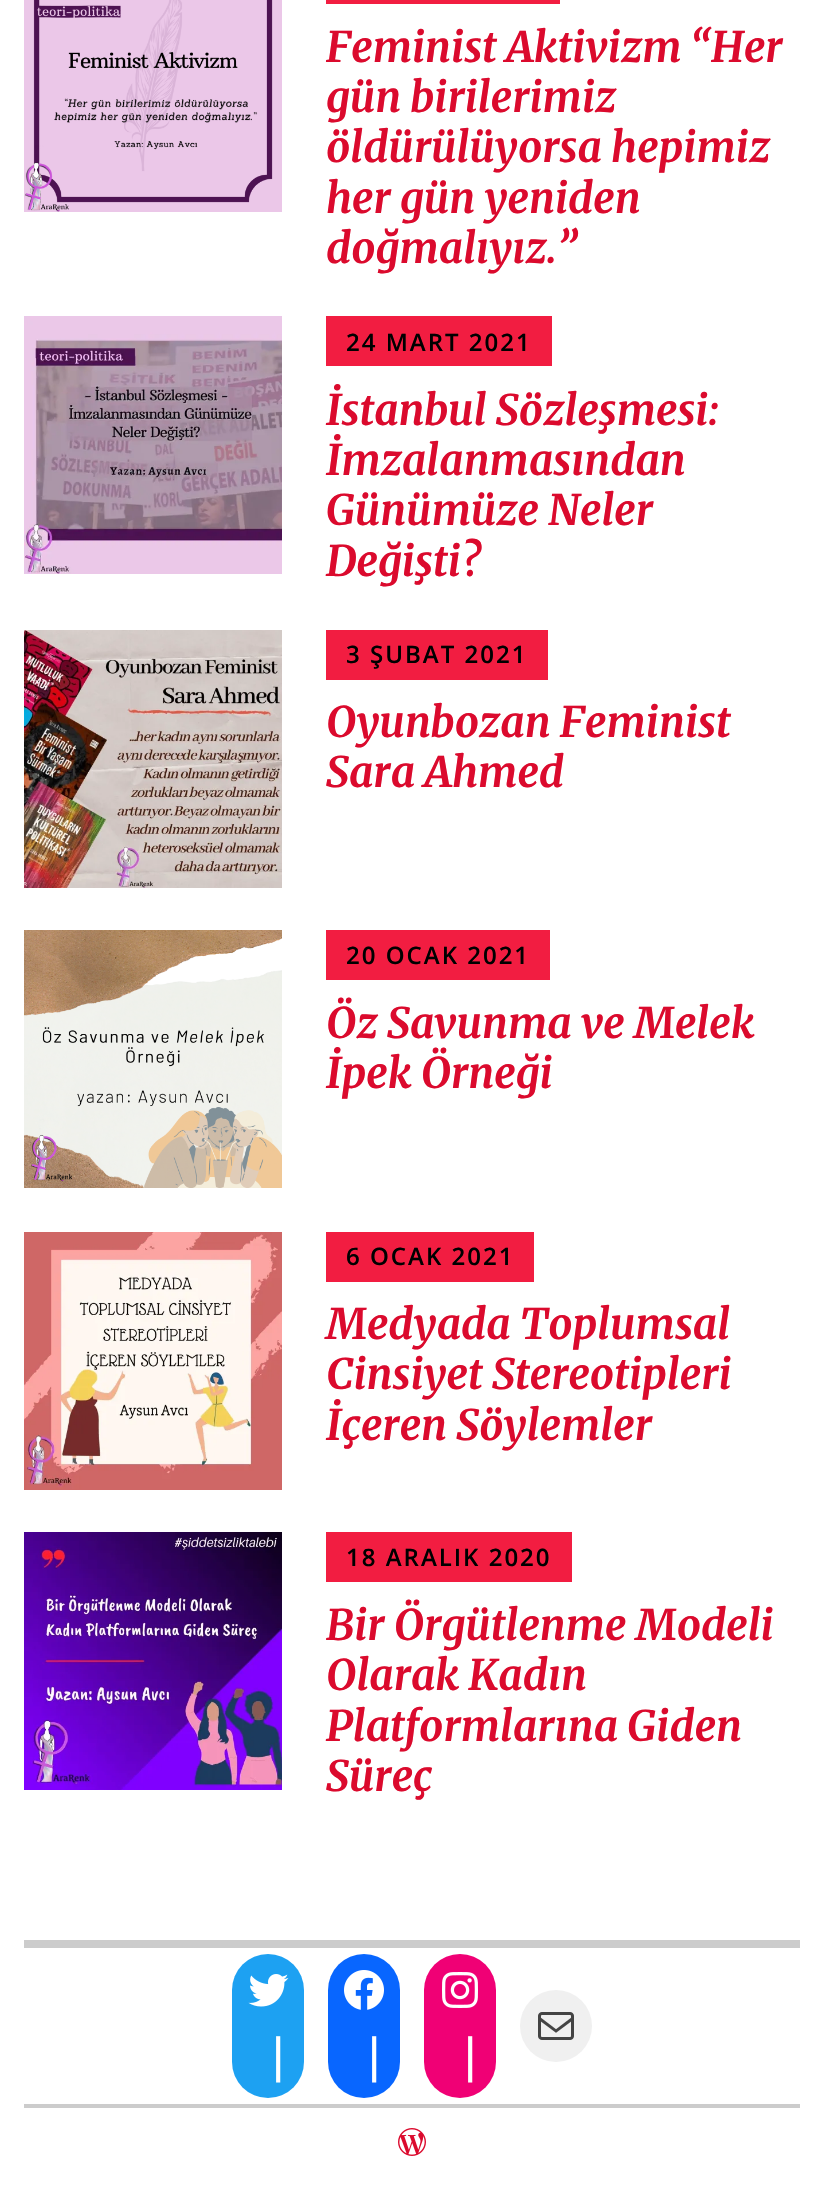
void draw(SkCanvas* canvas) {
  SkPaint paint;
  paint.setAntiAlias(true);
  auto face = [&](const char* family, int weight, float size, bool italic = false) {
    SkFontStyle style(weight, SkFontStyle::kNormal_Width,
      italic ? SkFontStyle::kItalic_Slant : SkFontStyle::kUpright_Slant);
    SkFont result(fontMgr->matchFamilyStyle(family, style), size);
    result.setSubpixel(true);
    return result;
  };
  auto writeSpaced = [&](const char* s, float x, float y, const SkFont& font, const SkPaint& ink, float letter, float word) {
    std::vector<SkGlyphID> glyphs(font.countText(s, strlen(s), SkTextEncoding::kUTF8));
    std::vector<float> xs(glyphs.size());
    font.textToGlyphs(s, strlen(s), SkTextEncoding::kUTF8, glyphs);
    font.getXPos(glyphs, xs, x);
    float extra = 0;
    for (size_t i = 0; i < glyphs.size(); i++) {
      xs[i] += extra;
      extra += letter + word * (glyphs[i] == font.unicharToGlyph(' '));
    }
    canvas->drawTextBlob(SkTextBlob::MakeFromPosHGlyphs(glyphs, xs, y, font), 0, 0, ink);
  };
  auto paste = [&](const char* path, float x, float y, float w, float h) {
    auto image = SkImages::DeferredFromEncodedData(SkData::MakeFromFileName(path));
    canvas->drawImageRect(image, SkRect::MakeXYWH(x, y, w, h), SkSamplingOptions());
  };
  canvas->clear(0xffffffff);
  paste("img/1.png", 24, 0, 258, 212);
  paint.setColor(0xfff21d41);
  canvas->drawRect(SkRect::MakeXYWH(326, 0, 234, 4), paint);
  paste("img/2.png", 24, 316, 258, 258);
  canvas->drawRect(SkRect::MakeXYWH(326, 316, 226, 50), paint);
  paste("img/3.png", 24, 630, 258, 258);
  canvas->drawRect(SkRect::MakeXYWH(326, 630, 222, 50), paint);
  paste("img/4.png", 24, 930, 258, 258);
  canvas->drawRect(SkRect::MakeXYWH(326, 930, 224, 50), paint);
  paste("img/5.png", 24, 1232, 258, 258);
  canvas->drawRect(SkRect::MakeXYWH(326, 1232, 208, 50), paint);
  paste("img/6.png", 24, 1532, 258, 258);
  canvas->drawRect(SkRect::MakeXYWH(326, 1532, 246, 50), paint);
  paint.setColor(0xffcccccc);
  canvas->drawRect(SkRect::MakeXYWH(24, 1940, 776, 8), paint);
  paint.setColor(0xff1da1f2);
  canvas->drawRoundRect(SkRect::MakeXYWH(232, 1954, 72, 144), 36, 36, paint);
  paste("img/7.png", 248, 1974, 41, 33);
  paint.setColor(0xff0866ff);
  canvas->drawRoundRect(SkRect::MakeXYWH(328, 1954, 72, 144), 36, 36, paint);
  paste("img/8.png", 344, 1970, 40, 40);
  paint.setColor(0xfff00075);
  canvas->drawRoundRect(SkRect::MakeXYWH(424, 1954, 72, 144), 36, 36, paint);
  paste("img/9.png", 442, 1972, 36, 36);
  paint.setColor(0xfff0f0f0);
  canvas->drawCircle(556, 2026, 36, paint);
  paste("img/10.png", 538, 2012, 36, 28);
  paint.setColor(0xffcccccc);
  canvas->drawRect(SkRect::MakeXYWH(24, 2104, 776, 4), paint);
  paste("img/11.png", 398, 2128, 28, 28);
  auto f0 = face("Merriweather", 700, 42, true);
  paint.setColor(0xffdb0a2d);
  {
    const struct { const char* s; float x, y; } items[] = {
      {"Feminist Aktivizm “Her", 326, 62},
      {"gün birilerimiz", 326, 112},
      {"öldürülüyorsa hepimiz", 326, 162},
      {"her gün yeniden", 326, 213},
      {"doğmalıyız.”", 326, 263},
    };
    for (auto [s, x, y] : items) {
      canvas->drawString(s, x, y, f0, paint);
    }
  }
  auto f1 = face("Open Sans", 600, 24);
  paint.setColor(0xff000000);
  writeSpaced("24 MART 2021", 346, 351, f1, paint, 2, 0);
  paint.setColor(0xffdb0a2d);
  {
    const struct { const char* s; float x, y; } items[] = {
      {"İstanbul Sözleşmesi:", 326, 425},
      {"İmzalanmasından", 326, 475},
      {"Günümüze Neler", 326, 525},
      {"Değişti?", 326, 576},
    };
    for (auto [s, x, y] : items) {
      canvas->drawString(s, x, y, f0, paint);
    }
  }
  paint.setColor(0xff000000);
  writeSpaced("3 ŞUBAT 2021", 346, 663, f1, paint, 2, 0);
  paint.setColor(0xffdb0a2d);
  canvas->drawString("Oyunbozan Feminist", 326, 737, f0, paint);
  canvas->drawString("Sara Ahmed", 326, 787, f0, paint);
  paint.setColor(0xff000000);
  writeSpaced("20 OCAK 2021", 346, 964, f1, paint, 2, 0);
  paint.setColor(0xffdb0a2d);
  canvas->drawString("Öz Savunma ve Melek", 326, 1038, f0, paint);
  canvas->drawString("İpek Örneği", 326, 1088, f0, paint);
  paint.setColor(0xff000000);
  writeSpaced("6 OCAK 2021", 346, 1265, f1, paint, 2, 0);
  paint.setColor(0xffdb0a2d);
  {
    const struct { const char* s; float x, y; } items[] = {
      {"Medyada Toplumsal", 326, 1339},
      {"Cinsiyet Stereotipleri", 326, 1389},
      {"İçeren Söylemler", 326, 1440},
    };
    for (auto [s, x, y] : items) {
      canvas->drawString(s, x, y, f0, paint);
    }
  }
  paint.setColor(0xff000000);
  writeSpaced("18 ARALIK 2020", 346, 1566, f1, paint, 2, 0);
  paint.setColor(0xffdb0a2d);
  {
    const struct { const char* s; float x, y; } items[] = {
      {"Bir Örgütlenme Modeli", 326, 1640},
      {"Olarak Kadın", 326, 1690},
      {"Platformlarına Giden", 326, 1741},
      {"Süreç", 326, 1791},
    };
    for (auto [s, x, y] : items) {
      canvas->drawString(s, x, y, f0, paint);
    }
  }
  auto f2 = face("Merriweather", 400, 48);
  paint.setColor(0xffffffff);
  {
    const struct { const char* s; float x, y; } items[] = {
      {"|", 268, 2078},
      {"|", 364, 2078},
      {"|", 460, 2078},
    };
    for (auto [s, x, y] : items) {
      canvas->drawString(s, x, y, f2, paint);
    }
  }
}
